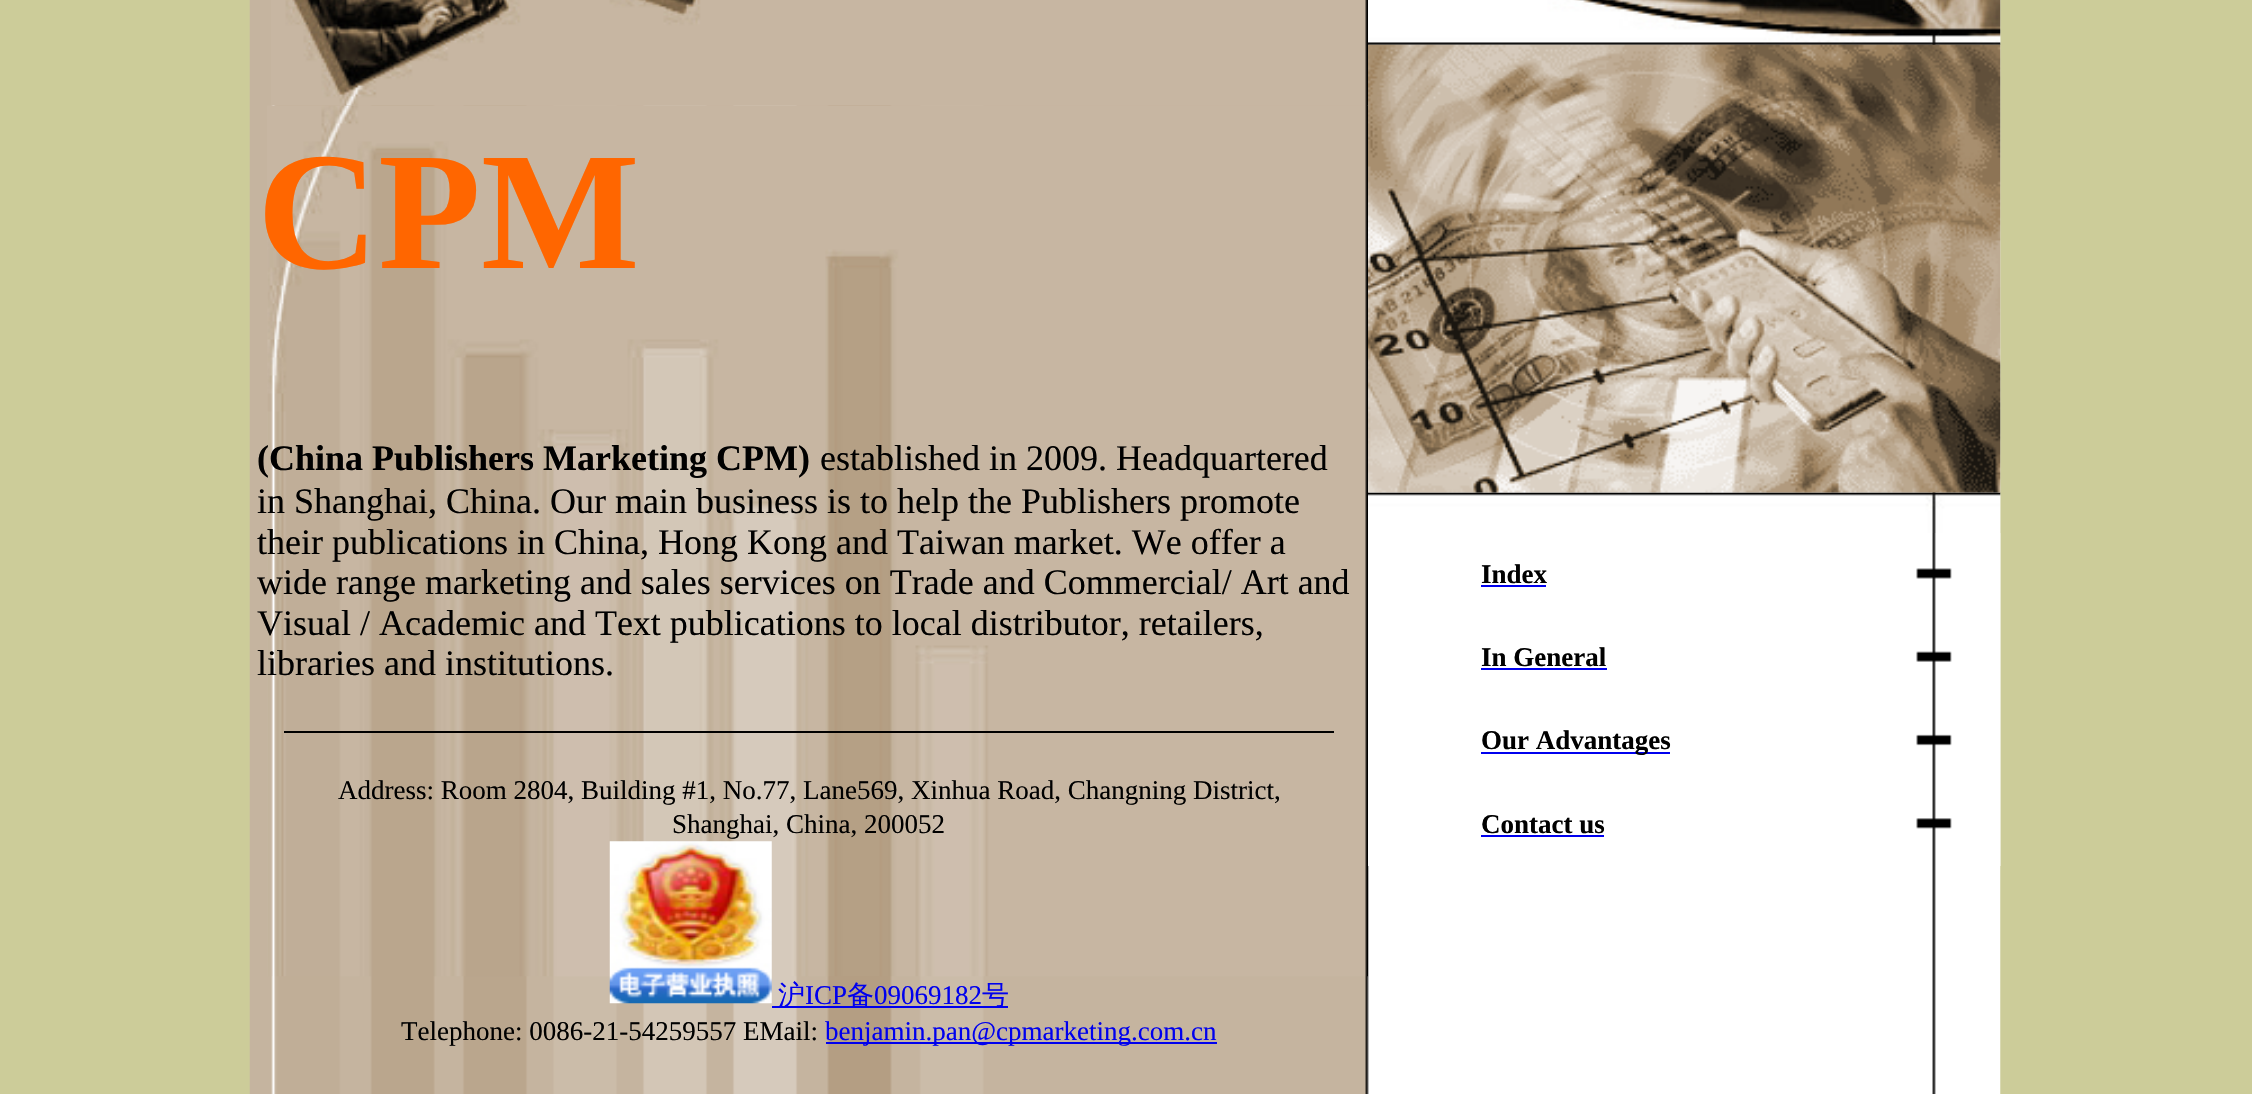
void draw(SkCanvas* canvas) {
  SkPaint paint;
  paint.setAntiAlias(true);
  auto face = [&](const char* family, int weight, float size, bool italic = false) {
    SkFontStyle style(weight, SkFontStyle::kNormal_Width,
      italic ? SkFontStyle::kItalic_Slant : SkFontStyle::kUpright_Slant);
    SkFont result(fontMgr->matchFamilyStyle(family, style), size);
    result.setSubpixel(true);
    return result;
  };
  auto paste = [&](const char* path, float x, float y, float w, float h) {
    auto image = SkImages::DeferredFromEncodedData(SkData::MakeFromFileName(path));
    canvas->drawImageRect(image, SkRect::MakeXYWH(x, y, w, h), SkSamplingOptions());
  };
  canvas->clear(0xffcccc99);
  paste("img/1.png", 249, 0, 1752, 1094);
  paste("img/3.png", 267, 105, 1101, 872);
  paste("img/2.png", 271, 0, 1097, 106);
  paint.setColor(0xff000000);
  canvas->drawRect(SkRect::MakeXYWH(284, 731, 1050, 2), paint);
  paste("img/4.png", 609, 841, 163, 163);
  paint.setColor(0xff0000ee);
  canvas->drawRect(SkRect::MakeXYWH(772, 1006, 236, 2), paint);
  canvas->drawRect(SkRect::MakeXYWH(826, 1042, 391, 2), paint);
  paste("img/5.png", 1368, 0, 633, 45);
  paste("img/7.png", 1368, 492, 633, 374);
  paste("img/6.png", 1368, 44, 633, 449);
  paste("img/8.png", 1916, 533, 85, 333);
  {
    const struct { float x, y, w, h; SkColor color; } items[] = {
      {1481, 585, 65, 2, 0xff0000ee},
      {1481, 668, 126, 2, 0xff0000ee},
      {1481, 752, 189, 2, 0xff0000ee},
      {1481, 835, 123, 2, 0xff0000ee},
    };
    for (auto [x, y, w, h, color] : items) {
      paint.setColor(color);
      canvas->drawRect(SkRect::MakeXYWH(x, y, w, h), paint);
    }
  }
  auto f0 = face("Liberation Serif", 700, 168);
  paint.setColor(0xffff6600);
  canvas->drawString("CPM", 257, 268, f0, paint);
  auto f1 = face("Liberation Serif", 700, 36);
  paint.setColor(0xff000000);
  canvas->drawString("(China Publishers Marketing CPM)", 257, 470, f1, paint);
  auto f2 = face("Liberation Serif", 400, 36);
  {
    const struct { const char* s; float x, y; } items[] = {
      {"established in 2009. Headquartered", 820, 470},
      {"in Shanghai, China. Our main business is to help the Publishers promote", 257, 513},
      {"their publications in China, Hong Kong and Taiwan market. We offer a", 257, 554},
      {"wide range marketing and sales services on Trade and Commercial/ Art and", 257, 594},
      {"Visual / Academic and Text publications to local distributor, retailers,", 257, 635},
      {"libraries and institutions.", 257, 675},
    };
    for (auto [s, x, y] : items) {
      canvas->drawString(s, x, y, f2, paint);
    }
  }
  auto f3 = face("Liberation Serif", 400, 27);
  canvas->drawString("Address: Room 2804, Building #1, No.77, Lane569, Xinhua Road, Changning District,", 338, 799, f3, paint);
  canvas->drawString("Shanghai, China, 200052", 672, 833, f3, paint);
  auto f4 = face("WenQuanYi Zen Hei", 500, 27);
  paint.setColor(0xff0000ee);
  canvas->drawString("沪", 778, 1004, f4, paint);
  canvas->drawString("ICP", 805, 1004, f3, paint);
  canvas->drawString("备", 847, 1004, f4, paint);
  canvas->drawString("09069182", 874, 1004, f3, paint);
  canvas->drawString("号", 982, 1004, f4, paint);
  paint.setColor(0xff000000);
  canvas->drawString("Telephone: 0086-21-54259557 EMail:", 401, 1040, f3, paint);
  paint.setColor(0xff0000ee);
  canvas->drawString("benjamin.pan@cpmarketing.com.cn", 825, 1040, f3, paint);
  auto f5 = face("Liberation Serif", 700, 27);
  paint.setColor(0xff000000);
  {
    const struct { const char* s; float x, y; } items[] = {
      {"Index", 1481, 583},
      {"In General", 1481, 666},
      {"Our Advantages", 1481, 749},
      {"Contact us", 1481, 833},
    };
    for (auto [s, x, y] : items) {
      canvas->drawString(s, x, y, f5, paint);
    }
  }
}
